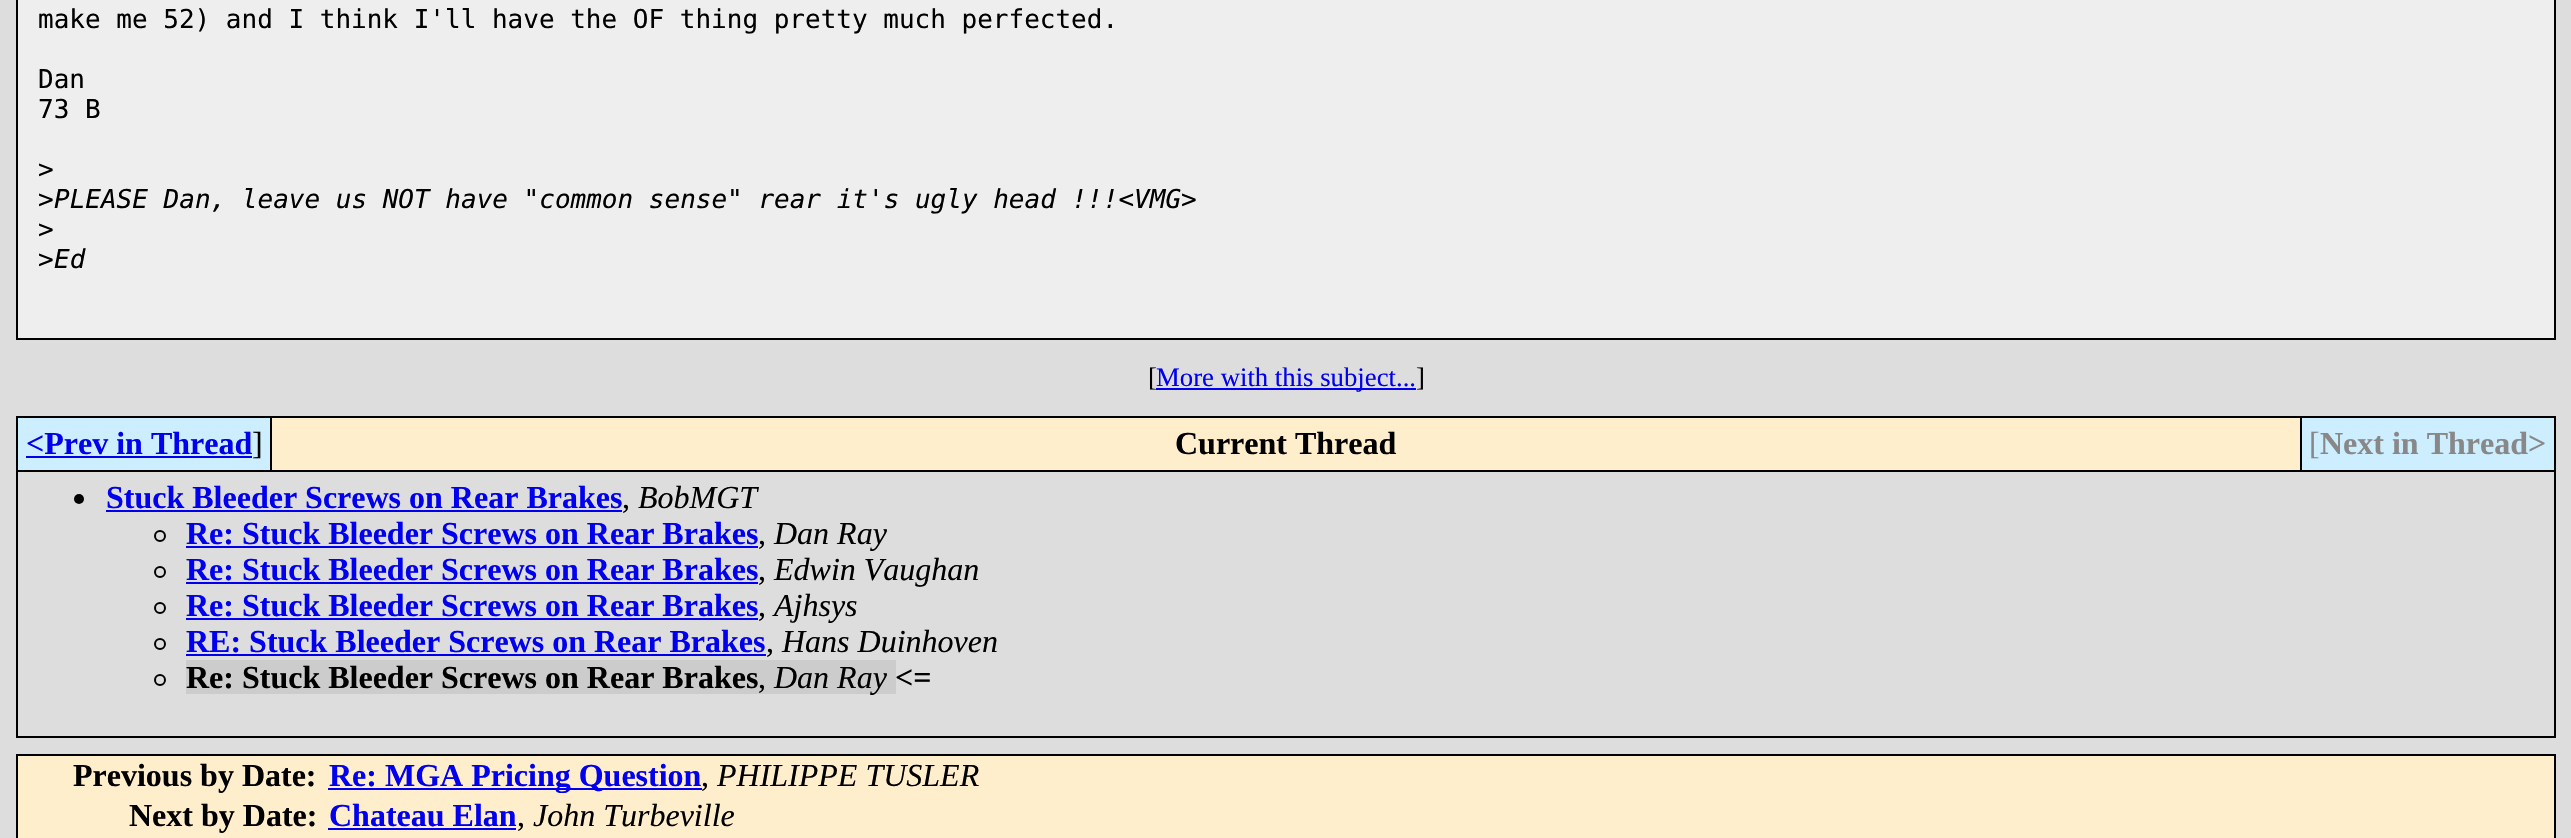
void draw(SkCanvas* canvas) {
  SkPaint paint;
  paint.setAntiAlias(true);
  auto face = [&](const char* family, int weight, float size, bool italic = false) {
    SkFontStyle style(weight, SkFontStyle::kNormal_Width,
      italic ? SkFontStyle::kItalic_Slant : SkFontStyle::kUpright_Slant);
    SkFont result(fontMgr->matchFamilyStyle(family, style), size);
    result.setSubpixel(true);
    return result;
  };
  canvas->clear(0xffdddddd);
  paint.setColor(0xffeeeeee);
  canvas->drawRect(SkRect::MakeXYWH(17, -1, 2538, 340), paint);
  paint.setStroke(true);
  paint.setStrokeWidth(2);
  paint.setColor(0xff000000);
  canvas->drawRect(SkRect::MakeXYWH(17, -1, 2538, 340), paint);
  paint.setStroke(false);
  {
    const struct { float x, y, w, h; SkColor color; } items[] = {
      {1156, 388, 260, 2, 0xff0000ee},
      {16, 416, 2540, 322, 0xff000000},
      {18, 418, 252, 52, 0xffcceeff},
      {26, 456, 226, 2, 0xff0000ee},
      {272, 418, 2028, 52, 0xffffeecc},
      {2302, 418, 252, 52, 0xffcceeff},
      {18, 472, 2536, 264, 0xffdddddd},
    };
    for (auto [x, y, w, h, color] : items) {
      paint.setColor(color);
      canvas->drawRect(SkRect::MakeXYWH(x, y, w, h), paint);
    }
  }
  paint.setColor(0xff000000);
  canvas->drawCircle(79, 499, 5, paint);
  paint.setColor(0xff0000ee);
  canvas->drawRect(SkRect::MakeXYWH(106, 510, 516, 2), paint);
  paint.setStroke(true);
  paint.setColor(0xff000000);
  canvas->drawCircle(160, 536, 5, paint);
  paint.setStroke(false);
  paint.setColor(0xff0000ee);
  canvas->drawRect(SkRect::MakeXYWH(186, 546, 572, 2), paint);
  paint.setStroke(true);
  paint.setColor(0xff000000);
  canvas->drawCircle(160, 572, 5, paint);
  paint.setStroke(false);
  paint.setColor(0xff0000ee);
  canvas->drawRect(SkRect::MakeXYWH(186, 582, 572, 2), paint);
  paint.setStroke(true);
  paint.setColor(0xff000000);
  canvas->drawCircle(160, 608, 5, paint);
  paint.setStroke(false);
  paint.setColor(0xff0000ee);
  canvas->drawRect(SkRect::MakeXYWH(186, 618, 572, 2), paint);
  paint.setStroke(true);
  paint.setColor(0xff000000);
  canvas->drawCircle(160, 644, 5, paint);
  paint.setStroke(false);
  paint.setColor(0xff0000ee);
  canvas->drawRect(SkRect::MakeXYWH(186, 654, 580, 2), paint);
  paint.setStroke(true);
  paint.setColor(0xff000000);
  canvas->drawCircle(160, 680, 5, paint);
  paint.setStroke(false);
  paint.setColor(0xffcccccc);
  canvas->drawRect(SkRect::MakeXYWH(186, 660, 710, 34), paint);
  paint.setColor(0xffffeecc);
  canvas->drawRect(SkRect::MakeXYWH(17, 755, 2538, 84), paint);
  paint.setStroke(true);
  paint.setColor(0xff000000);
  canvas->drawRect(SkRect::MakeXYWH(17, 755, 2538, 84), paint);
  paint.setStroke(false);
  paint.setColor(0xff0000ee);
  canvas->drawRect(SkRect::MakeXYWH(328, 788, 374, 2), paint);
  canvas->drawRect(SkRect::MakeXYWH(328, 828, 188, 2), paint);
  auto f0 = face("DejaVu Sans Mono", 400, 26);
  paint.setColor(0xff000000);
  {
    const struct { const char* s; float x, y; } items[] = {
      {"make me 52) and I think I'll have the OF thing pretty much perfected.", 38, 28},
      {"Dan", 38, 88},
      {"73 B", 38, 118},
      {">", 38, 178},
      {">", 38, 208},
    };
    for (auto [s, x, y] : items) {
      canvas->drawString(s, x, y, f0, paint);
    }
  }
  auto f1 = face("DejaVu Sans Mono", 400, 26, true);
  canvas->drawString("PLEASE Dan, leave us NOT have \"common sense\" rear it's ugly head !!!<VMG>", 54, 208, f1, paint);
  canvas->drawString(">", 38, 238, f0, paint);
  canvas->drawString(">", 38, 268, f0, paint);
  canvas->drawString("Ed", 54, 268, f1, paint);
  auto f2 = face("Liberation Serif", 400, 26.75f);
  canvas->drawString("[", 1148, 386, f2, paint);
  paint.setColor(0xff0000ee);
  canvas->drawString("More with this subject...", 1156, 386, f2, paint);
  paint.setColor(0xff000000);
  canvas->drawString("]", 1416, 386, f2, paint);
  auto f3 = face("Liberation Serif", 700, 32);
  paint.setColor(0xff0000ee);
  canvas->drawString("<Prev in Thread", 26, 454, f3, paint);
  auto f4 = face("Liberation Serif", 400, 32);
  paint.setColor(0xff000000);
  canvas->drawString("]", 252, 454, f4, paint);
  canvas->drawString("Current Thread", 1175, 454, f3, paint);
  paint.setColor(0xff888888);
  canvas->drawString("[", 2309, 454, f4, paint);
  canvas->drawString("Next in Thread>", 2320, 454, f3, paint);
  paint.setColor(0xff0000ee);
  canvas->drawString("Stuck Bleeder Screws on Rear Brakes", 106, 508, f3, paint);
  auto f5 = face("Liberation Serif", 400, 32, true);
  paint.setColor(0xff000000);
  canvas->drawString("BobMGT", 638, 508, f5, paint);
  canvas->drawString(",", 622, 508, f4, paint);
  paint.setColor(0xff0000ee);
  canvas->drawString("Re: Stuck Bleeder Screws on Rear Brakes", 186, 544, f3, paint);
  paint.setColor(0xff000000);
  canvas->drawString("Dan Ray", 774, 544, f5, paint);
  canvas->drawString(",", 758, 544, f4, paint);
  paint.setColor(0xff0000ee);
  canvas->drawString("Re: Stuck Bleeder Screws on Rear Brakes", 186, 580, f3, paint);
  paint.setColor(0xff000000);
  canvas->drawString("Edwin Vaughan", 774, 580, f5, paint);
  canvas->drawString(",", 758, 580, f4, paint);
  paint.setColor(0xff0000ee);
  canvas->drawString("Re: Stuck Bleeder Screws on Rear Brakes", 186, 616, f3, paint);
  paint.setColor(0xff000000);
  canvas->drawString("Ajhsys", 774, 616, f5, paint);
  canvas->drawString(",", 758, 616, f4, paint);
  paint.setColor(0xff0000ee);
  canvas->drawString("RE: Stuck Bleeder Screws on Rear Brakes", 186, 652, f3, paint);
  paint.setColor(0xff000000);
  canvas->drawString("Hans Duinhoven", 782, 652, f5, paint);
  canvas->drawString(",", 766, 652, f4, paint);
  canvas->drawString("Re: Stuck Bleeder Screws on Rear Brakes", 186, 688, f3, paint);
  canvas->drawString("Dan Ray", 774, 688, f5, paint);
  canvas->drawString("<=", 895, 688, f3, paint);
  canvas->drawString(",", 758, 688, f4, paint);
  canvas->drawString("Previous by Date:", 73, 786, f3, paint);
  paint.setColor(0xff0000ee);
  canvas->drawString("Re: MGA Pricing Question", 329, 786, f3, paint);
  paint.setColor(0xff000000);
  canvas->drawString(",", 701, 786, f4, paint);
  canvas->drawString("PHILIPPE TUSLER", 717, 786, f5, paint);
  canvas->drawString("Next by Date:", 129, 826, f3, paint);
  paint.setColor(0xff0000ee);
  canvas->drawString("Chateau Elan", 329, 826, f3, paint);
  paint.setColor(0xff000000);
  canvas->drawString(",", 517, 826, f4, paint);
  canvas->drawString("John Turbeville", 533, 826, f5, paint);
}
